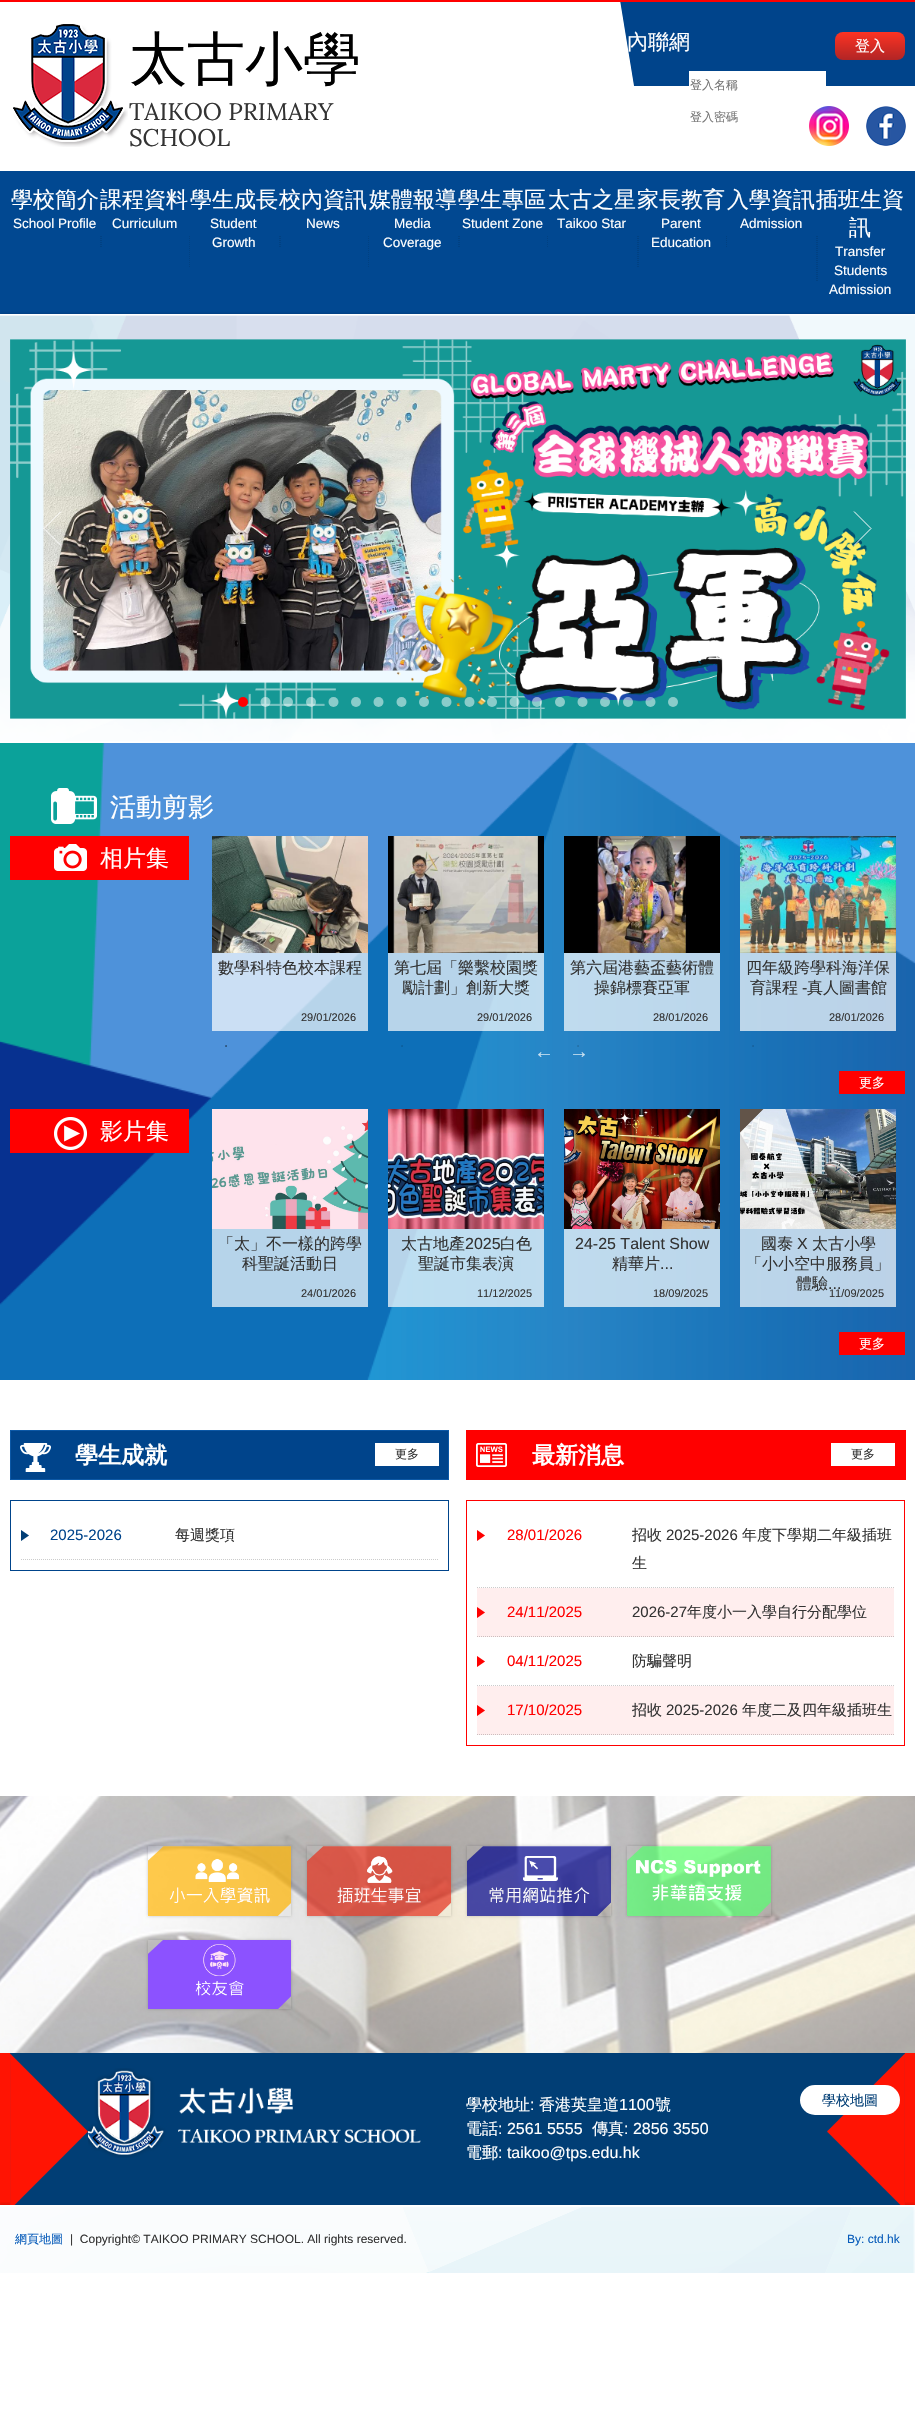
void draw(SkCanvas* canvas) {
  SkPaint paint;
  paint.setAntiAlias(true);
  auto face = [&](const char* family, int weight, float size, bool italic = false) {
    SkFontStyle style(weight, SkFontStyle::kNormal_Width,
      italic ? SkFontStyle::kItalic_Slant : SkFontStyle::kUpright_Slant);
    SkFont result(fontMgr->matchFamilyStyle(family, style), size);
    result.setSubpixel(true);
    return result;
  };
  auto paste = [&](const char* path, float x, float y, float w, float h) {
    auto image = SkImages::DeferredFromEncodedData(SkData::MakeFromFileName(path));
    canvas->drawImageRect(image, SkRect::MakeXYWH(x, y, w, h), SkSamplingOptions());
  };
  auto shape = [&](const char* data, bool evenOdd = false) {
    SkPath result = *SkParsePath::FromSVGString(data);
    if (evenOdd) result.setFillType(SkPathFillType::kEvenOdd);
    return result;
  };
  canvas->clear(0xffffffff);
  paint.setColor(0xff00448b);
  canvas->drawRect(SkRect::MakeXYWH(634, 2, 281, 84), paint);
  paint.setColor(0xffff0000);
  canvas->drawRect(SkRect::MakeXYWH(0, 0, 915, 2), paint);
  paste("img/1.png", 13, 24, 115, 123);
  paste("img/2.png", 809, 106, 40, 40);
  paste("img/3.png", 866, 106, 40, 40);
  paste("img/4.png", 619, 2, 15, 84);
  {
    const SkColor colors[] = {0xfffd3323, 0xffb12525};
    const float stops[] = {0, 1};
    const SkPoint ends[] = {{870, 32}, {870, 60}};
    paint.setShader(SkGradientShader::MakeLinear(ends, colors, stops, 2, SkTileMode::kClamp));
    paint.setAlpha(255);
  }
  canvas->drawRoundRect(SkRect::MakeXYWH(835, 32, 70, 28), 8, 8, paint);
  paint.setShader(nullptr);
  paint.setColor(0xffffffff);
  canvas->drawRect(SkRect::MakeXYWH(689, 71, 137, 15), paint);
  paint.setColor(0xff014891);
  canvas->drawRect(SkRect::MakeXYWH(0, 171, 915, 143), paint);
  paste("img/5.png", 100, 236, 2, 11);
  paste("img/6.png", 189, 236, 1, 31);
  paste("img/5.png", 279, 236, 2, 11);
  paste("img/6.png", 368, 236, 1, 31);
  paste("img/5.png", 458, 236, 2, 11);
  paste("img/7.png", 547, 236, 1, 11);
  paste("img/8.png", 637, 236, 2, 31);
  paste("img/7.png", 726, 236, 1, 11);
  paste("img/9.png", 816, 236, 2, 45);
  paint.setColor(0x33000000);
  paint.setMaskFilter(SkMaskFilter::MakeBlur(kNormal_SkBlurStyle, 1.5f));
  canvas->drawRect(SkRect::MakeXYWH(0, 314, 915, 429), paint);
  paint.setMaskFilter(nullptr);
  paint.setColor(0xffffffff);
  canvas->drawRect(SkRect::MakeXYWH(0, 314, 915, 429), paint);
  paste("img/10.png", 0, 315, 915, 426);
  paste("img/11.png", 10, 339, 896, 380);
  paint.setStroke(true);
  paint.setStrokeWidth(1);
  canvas->drawPath(shape("M61 511.5L44 528.5L61 545.5"), paint);
  canvas->drawPath(shape("M854 511.5L871 528.5L854 545.5"), paint);
  paint.setStroke(false);
  paint.setColor(0xffff0000);
  canvas->drawCircle(243, 702, 5, paint);
  paint.setColor(0x80ffffff);
  canvas->drawCircle(265.5f, 702, 5, paint);
  canvas->drawCircle(288, 702, 5, paint);
  canvas->drawCircle(311, 702, 5, paint);
  paint.setColor(0xff8accca);
  canvas->drawCircle(333.5f, 702, 5, paint);
  canvas->drawCircle(356, 702, 5, paint);
  canvas->drawCircle(378.5f, 702, 5, paint);
  canvas->drawCircle(401.5f, 702, 5, paint);
  paint.setColor(0x80ffffff);
  canvas->drawCircle(424, 702, 5, paint);
  paint.setColor(0xff8accca);
  canvas->drawCircle(446.5f, 702, 5, paint);
  canvas->drawCircle(469.5f, 702, 5, paint);
  paint.setColor(0x80ffffff);
  canvas->drawCircle(492, 702, 5, paint);
  canvas->drawCircle(514.5f, 702, 5, paint);
  canvas->drawCircle(537, 702, 5, paint);
  paint.setColor(0xff8accca);
  canvas->drawCircle(560, 702, 5, paint);
  paint.setColor(0x80ffffff);
  canvas->drawCircle(582.5f, 702, 5, paint);
  canvas->drawCircle(605, 702, 5, paint);
  canvas->drawCircle(628, 702, 5, paint);
  canvas->drawCircle(650.5f, 702, 5, paint);
  paint.setColor(0xff8accca);
  canvas->drawCircle(673, 702, 5, paint);
  paint.setColor(0xff4e92da);
  canvas->drawRect(SkRect::MakeXYWH(89, 743, 826, 356), paint);
  paste("img/12.png", 0, 743, 915, 637);
  paste("img/13.png", 51, 788, 46, 36);
  paint.setColor(0xffff0000);
  canvas->drawRect(SkRect::MakeXYWH(10, 836, 179, 44), paint);
  paste("img/14.png", 54, 844, 33, 27);
  paint.setColor(0xb3ffffff);
  canvas->drawRect(SkRect::MakeXYWH(212, 953, 156, 78), paint);
  paste("img/15.png", 212, 836, 156, 117);
  canvas->drawRect(SkRect::MakeXYWH(388, 953, 156, 78), paint);
  paste("img/16.png", 388, 836, 156, 117);
  canvas->drawRect(SkRect::MakeXYWH(564, 953, 156, 78), paint);
  paste("img/17.png", 564, 836, 156, 117);
  canvas->drawRect(SkRect::MakeXYWH(740, 953, 156, 78), paint);
  paste("img/18.png", 740, 836, 156, 117);
  paint.setColor(0xffff0000);
  canvas->drawRect(SkRect::MakeXYWH(839, 1071, 66, 23), paint);
  canvas->drawRect(SkRect::MakeXYWH(10, 1109, 179, 44), paint);
  paste("img/19.png", 54, 1117, 33, 33);
  paint.setColor(0xffb6d4ea);
  canvas->drawRect(SkRect::MakeXYWH(212, 1229, 156, 78), paint);
  paste("img/20.png", 212, 1109, 156, 120);
  paint.setColor(0xb3ffffff);
  canvas->drawRect(SkRect::MakeXYWH(388, 1229, 156, 78), paint);
  paste("img/21.png", 388, 1109, 156, 120);
  canvas->drawRect(SkRect::MakeXYWH(564, 1229, 156, 78), paint);
  paste("img/22.png", 564, 1109, 156, 120);
  canvas->drawRect(SkRect::MakeXYWH(740, 1229, 156, 78), paint);
  paste("img/23.png", 740, 1109, 156, 120);
  paint.setColor(0xffff0000);
  canvas->drawRect(SkRect::MakeXYWH(839, 1332, 66, 23), paint);
  paint.setColor(0xff00448b);
  canvas->drawRect(SkRect::MakeXYWH(10.5f, 1430.5f, 438, 49), paint);
  paint.setStroke(true);
  paint.setColor(0xff0c58a6);
  canvas->drawRect(SkRect::MakeXYWH(10.5f, 1430.5f, 438, 49), paint);
  paste("img/24.png", 20, 1443, 31, 29);
  paint.setStroke(false);
  paint.setColor(0xffffffff);
  canvas->drawRect(SkRect::MakeXYWH(375, 1443, 64, 23), paint);
  paint.setStroke(true);
  paint.setColor(0xff00448b);
  canvas->drawRect(SkRect::MakeXYWH(10.5f, 1500.5f, 438, 70), paint);
  paint.setColor(0xffcccccc);
  paint.setPathEffect(SkDashPathEffect::Make({{1, 1}}, 0));
  canvas->drawPath(shape("M21 1559.5H438"), paint);
  paint.setPathEffect(nullptr);
  paste("img/25.png", 21, 1530, 8, 11);
  paint.setStroke(false);
  paint.setColor(0xffff0000);
  canvas->drawRect(SkRect::MakeXYWH(466, 1430, 440, 50), paint);
  paste("img/26.png", 476, 1443, 31, 24);
  paint.setColor(0xffffffff);
  canvas->drawRect(SkRect::MakeXYWH(831, 1443, 64, 23), paint);
  paint.setStroke(true);
  paint.setColor(0xffff0000);
  canvas->drawRect(SkRect::MakeXYWH(466.5f, 1500.5f, 438, 245), paint);
  paint.setColor(0xffcccccc);
  paint.setPathEffect(SkDashPathEffect::Make({{1, 1}}, 0));
  canvas->drawPath(shape("M477 1587.5H894"), paint);
  paint.setPathEffect(nullptr);
  paste("img/27.png", 477, 1530, 8, 11);
  paint.setStroke(false);
  paint.setColor(0xffffeeee);
  canvas->drawRect(SkRect::MakeXYWH(477, 1588, 417, 49), paint);
  paint.setStroke(true);
  paint.setColor(0xffccbebe);
  paint.setPathEffect(SkDashPathEffect::Make({{1, 1}}, 0));
  canvas->drawPath(shape("M477 1636.5H894"), paint);
  paint.setPathEffect(nullptr);
  paste("img/28.png", 477, 1607, 8, 11);
  paint.setColor(0xffcccccc);
  paint.setPathEffect(SkDashPathEffect::Make({{1, 1}}, 0));
  canvas->drawPath(shape("M477 1685.5H894"), paint);
  paint.setPathEffect(nullptr);
  paste("img/27.png", 477, 1656, 8, 11);
  paint.setStroke(false);
  paint.setColor(0xffffeeee);
  canvas->drawRect(SkRect::MakeXYWH(477, 1686, 417, 49), paint);
  paint.setStroke(true);
  paint.setColor(0xffccbebe);
  paint.setPathEffect(SkDashPathEffect::Make({{1, 1}}, 0));
  canvas->drawPath(shape("M477 1734.5H894"), paint);
  paint.setPathEffect(nullptr);
  paste("img/28.png", 477, 1705, 8, 11);
  paste("img/29.png", 0, 1796, 915, 257);
  canvas->save();
  canvas->clipPath(shape("M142 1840H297V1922H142ZM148 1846H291V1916H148Z", true), true);
  paint.setStroke(false);
  paint.setColor(0x33000000);
  paint.setMaskFilter(SkMaskFilter::MakeBlur(kNormal_SkBlurStyle, 1.5f));
  canvas->drawRect(SkRect::MakeXYWH(148, 1846, 143, 70), paint);
  paint.setMaskFilter(nullptr);
  canvas->restore();
  paste("img/30.png", 148, 1846, 143, 70);
  canvas->save();
  canvas->clipPath(shape("M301 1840H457V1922H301ZM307 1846H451V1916H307Z", true), true);
  paint.setMaskFilter(SkMaskFilter::MakeBlur(kNormal_SkBlurStyle, 1.5f));
  canvas->drawRect(SkRect::MakeXYWH(307, 1846, 144, 70), paint);
  paint.setMaskFilter(nullptr);
  canvas->restore();
  paste("img/31.png", 307, 1846, 144, 70);
  canvas->save();
  canvas->clipPath(shape("M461 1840H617V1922H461ZM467 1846H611V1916H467Z", true), true);
  paint.setMaskFilter(SkMaskFilter::MakeBlur(kNormal_SkBlurStyle, 1.5f));
  canvas->drawRect(SkRect::MakeXYWH(467, 1846, 144, 70), paint);
  paint.setMaskFilter(nullptr);
  canvas->restore();
  paste("img/32.png", 467, 1846, 144, 70);
  canvas->save();
  canvas->clipPath(shape("M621 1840H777V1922H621ZM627 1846H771V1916H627Z", true), true);
  paint.setMaskFilter(SkMaskFilter::MakeBlur(kNormal_SkBlurStyle, 1.5f));
  canvas->drawRect(SkRect::MakeXYWH(627, 1846, 144, 70), paint);
  paint.setMaskFilter(nullptr);
  canvas->restore();
  paste("img/33.png", 627, 1846, 144, 70);
  canvas->save();
  canvas->clipPath(shape("M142 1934H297V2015H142ZM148 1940H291V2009H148Z", true), true);
  paint.setMaskFilter(SkMaskFilter::MakeBlur(kNormal_SkBlurStyle, 1.5f));
  canvas->drawRect(SkRect::MakeXYWH(148, 1940, 143, 69), paint);
  paint.setMaskFilter(nullptr);
  canvas->restore();
  paste("img/34.png", 148, 1940, 143, 69);
  paint.setColor(0xffff1403);
  canvas->drawRect(SkRect::MakeXYWH(0, 2053, 915, 152), paint);
  canvas->save();
  canvas->clipRect(SkRect::MakeXYWH(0, 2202, 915, 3));
  paint.setColor(0x1a000000);
  paint.setMaskFilter(SkMaskFilter::MakeBlur(kNormal_SkBlurStyle, 1));
  canvas->drawRect(SkRect::MakeXYWH(0, 2203, 915, 68), paint);
  paint.setMaskFilter(nullptr);
  canvas->restore();
  paint.setColor(0xff013e75);
  canvas->drawRect(SkRect::MakeXYWH(10, 2053, 895, 152), paint);
  paste("img/35.png", 10, 2053, 78, 152);
  paste("img/36.png", 88, 2068, 333, 90);
  paste("img/37.png", 827, 2053, 78, 152);
  paint.setColor(0xffffffff);
  canvas->drawRoundRect(SkRect::MakeXYWH(800, 2085, 100, 30), 15, 15, paint);
  paste("img/38.png", 0, 2207, 915, 66);
  auto f0 = face("WenQuanYi Zen Hei", 500, 58);
  paint.setColor(0xff000000);
  canvas->drawString("太古小學", 129, 79, f0, paint);
  auto f1 = face("Lora", 400, 24);
  paint.setColor(0xff333333);
  canvas->drawString("TAIKOO PRIMARY", 129, 120, f1, paint);
  canvas->drawString("SCHOOL", 129, 146, f1, paint);
  auto f2 = face("WenQuanYi Zen Hei", 500, 21);
  paint.setColor(0xffffffff);
  canvas->drawString("內聯網", 627, 49, f2, paint);
  auto f3 = face("WenQuanYi Zen Hei", 500, 15);
  canvas->drawString("登入", 855, 51, f3, paint);
  auto f4 = face("WenQuanYi Zen Hei", 500, 12);
  paint.setColor(0xff757575);
  canvas->drawString("登入名稱", 690, 89, f4, paint);
  canvas->drawString("登入密碼", 690, 121, f4, paint);
  auto f5 = face("WenQuanYi Zen Hei", 500, 22);
  paint.setColor(0xffffffff);
  canvas->drawString("學校簡介", 11, 207, f5, paint);
  auto f6 = face("Liberation Sans", 400, 13.5f);
  canvas->drawString("School Profile", 13, 228, f6, paint);
  canvas->drawString("課程資料", 100, 207, f5, paint);
  canvas->drawString("Curriculum", 112, 228, f6, paint);
  canvas->drawString("學生成長", 190, 207, f5, paint);
  canvas->drawString("Student", 210, 228, f6, paint);
  canvas->drawString("Growth", 212, 247, f6, paint);
  canvas->drawString("校內資訊", 279, 207, f5, paint);
  canvas->drawString("News", 306, 228, f6, paint);
  canvas->drawString("媒體報導", 369, 207, f5, paint);
  canvas->drawString("Media", 394, 228, f6, paint);
  canvas->drawString("Coverage", 383, 247, f6, paint);
  canvas->drawString("學生專區", 458, 207, f5, paint);
  canvas->drawString("Student Zone", 462, 228, f6, paint);
  canvas->drawString("太古之星", 548, 207, f5, paint);
  canvas->drawString("Taikoo Star", 557, 228, f6, paint);
  canvas->drawString("家長教育", 637, 207, f5, paint);
  canvas->drawString("Parent", 661, 228, f6, paint);
  canvas->drawString("Education", 651, 247, f6, paint);
  canvas->drawString("入學資訊", 727, 207, f5, paint);
  canvas->drawString("Admission", 740, 228, f6, paint);
  canvas->drawString("插班生資", 816, 207, f5, paint);
  canvas->drawString("訊", 849, 235, f5, paint);
  {
    const struct { const char* s; float x, y; } items[] = {
      {"Transfer", 835, 256},
      {"Students", 834, 275},
      {"Admission", 829, 294},
    };
    for (auto [s, x, y] : items) {
      canvas->drawString(s, x, y, f6, paint);
    }
  }
  auto f7 = face("WenQuanYi Zen Hei", 500, 26);
  canvas->drawString("活動剪影", 110, 816, f7, paint);
  auto f8 = face("WenQuanYi Zen Hei", 500, 23);
  canvas->drawString("相片集", 100, 866, f8, paint);
  auto f9 = face("WenQuanYi Zen Hei", 500, 16);
  paint.setColor(0xff333333);
  canvas->drawString("數學科特色校本課程", 218, 973, f9, paint);
  auto f10 = face("Liberation Sans", 400, 11);
  canvas->drawString("29/01/2026", 301, 1021, f10, paint);
  canvas->drawString("第七屆「樂繫校園獎", 394, 973, f9, paint);
  canvas->drawString("勵計劃」創新大獎", 402, 993, f9, paint);
  canvas->drawString("29/01/2026", 477, 1021, f10, paint);
  canvas->drawString("第六屆港藝盃藝術體", 570, 973, f9, paint);
  canvas->drawString("操錦標賽亞軍", 594, 993, f9, paint);
  canvas->drawString("28/01/2026", 653, 1021, f10, paint);
  canvas->drawString("四年級跨學科海洋保", 746, 973, f9, paint);
  canvas->drawString("育課程", 750, 993, f9, paint);
  auto f11 = face("Liberation Sans", 400, 16);
  canvas->drawString("-", 802, 993, f11, paint);
  canvas->drawString("真人圖書館", 807, 993, f9, paint);
  canvas->drawString("28/01/2026", 829, 1021, f10, paint);
  auto f12 = face("Liberation Serif", 400, 6);
  paint.setColor(0xff142537);
  canvas->drawString("•", 225, 1048, f12, paint);
  paint.setColor(0xff0a538a);
  canvas->drawString("•", 401, 1048, f12, paint);
  paint.setColor(0xff1e6393);
  canvas->drawString("•", 577, 1048, f12, paint);
  paint.setColor(0xff14568b);
  canvas->drawString("•", 752, 1048, f12, paint);
  auto f13 = face("Liberation Serif", 400, 20);
  paint.setColor(0xffc9e1f1);
  canvas->drawString("←", 534, 1058, f13, paint);
  canvas->drawString("→", 569, 1058, f13, paint);
  auto f14 = face("WenQuanYi Zen Hei", 500, 13);
  paint.setColor(0xffffffff);
  canvas->drawString("更多", 859, 1087, f14, paint);
  canvas->drawString("影片集", 100, 1139, f8, paint);
  paint.setColor(0xff333333);
  canvas->drawString("「太」不一樣的跨學", 218, 1249, f9, paint);
  canvas->drawString("科聖誕活動日", 242, 1269, f9, paint);
  canvas->drawString("24/01/2026", 301, 1297, f10, paint);
  canvas->drawString("太古地產", 401, 1249, f9, paint);
  canvas->drawString("2025", 465, 1249, f11, paint);
  canvas->drawString("白色", 500, 1249, f9, paint);
  canvas->drawString("聖誕市集表演", 418, 1269, f9, paint);
  canvas->drawString("11/12/2025", 477, 1297, f10, paint);
  canvas->drawString("24-25 Talent Show", 575, 1249, f11, paint);
  canvas->drawString("精華片", 612, 1269, f9, paint);
  canvas->drawString("...", 660, 1269, f11, paint);
  canvas->drawString("18/09/2025", 653, 1297, f10, paint);
  canvas->drawString("國泰", 761, 1249, f9, paint);
  canvas->drawString("X", 797, 1249, f11, paint);
  {
    const struct { const char* s; float x, y; } items[] = {
      {"太古小學", 812, 1249},
      {"「小小空中服務員」", 746, 1269},
      {"體驗", 796, 1289},
    };
    for (auto [s, x, y] : items) {
      canvas->drawString(s, x, y, f9, paint);
    }
  }
  canvas->drawString("...", 828, 1289, f11, paint);
  canvas->drawString("11/09/2025", 829, 1297, f10, paint);
  paint.setColor(0xffffffff);
  canvas->drawString("更多", 859, 1348, f14, paint);
  auto f15 = face("WenQuanYi Zen Hei", 700, 23);
  canvas->drawString("學生成就", 75, 1463, f15, paint);
  paint.setColor(0xff333333);
  canvas->drawString("更多", 395, 1458, f4, paint);
  auto f16 = face("Liberation Sans", 400, 15);
  paint.setColor(0xff00448b);
  canvas->drawString("2025-2026", 50, 1540, f16, paint);
  paint.setColor(0xff333333);
  canvas->drawString("每週獎項", 175, 1540, f3, paint);
  paint.setColor(0xffffffff);
  canvas->drawString("最新消息", 532, 1463, f15, paint);
  paint.setColor(0xff333333);
  canvas->drawString("更多", 851, 1458, f4, paint);
  paint.setColor(0xffff0000);
  canvas->drawString("28/01/2026", 507, 1540, f16, paint);
  paint.setColor(0xff333333);
  canvas->drawString("招收", 632, 1540, f3, paint);
  canvas->drawString("2025-2026", 666, 1540, f16, paint);
  canvas->drawString("年度下學期二年級插班", 742, 1540, f3, paint);
  canvas->drawString("生", 632, 1568, f3, paint);
  paint.setColor(0xffff0000);
  canvas->drawString("24/11/2025", 507, 1617, f16, paint);
  paint.setColor(0xff333333);
  canvas->drawString("2026-27", 632, 1617, f16, paint);
  canvas->drawString("年度小一入學自行分配學位", 687, 1617, f3, paint);
  paint.setColor(0xffff0000);
  canvas->drawString("04/11/2025", 507, 1666, f16, paint);
  paint.setColor(0xff333333);
  canvas->drawString("防騙聲明", 632, 1666, f3, paint);
  paint.setColor(0xffff0000);
  canvas->drawString("17/10/2025", 507, 1715, f16, paint);
  paint.setColor(0xff333333);
  canvas->drawString("招收", 632, 1715, f3, paint);
  canvas->drawString("2025-2026", 666, 1715, f16, paint);
  canvas->drawString("年度二及四年級插班生", 742, 1715, f3, paint);
  paint.setColor(0xffffffff);
  canvas->drawString("學校地址", 466, 2110, f9, paint);
  canvas->drawString(":", 530, 2110, f11, paint);
  canvas->drawString("香港英皇道", 539, 2110, f9, paint);
  canvas->drawString("1100", 619, 2110, f11, paint);
  canvas->drawString("號", 655, 2110, f9, paint);
  canvas->drawString("電話", 466, 2134, f9, paint);
  canvas->drawString(": 2561 5555", 498, 2134, f11, paint);
  canvas->drawString("傳真", 592, 2134, f9, paint);
  canvas->drawString(": 2856 3550", 624, 2134, f11, paint);
  canvas->drawString("電郵", 466, 2158, f9, paint);
  canvas->drawString(": taikoo@tps.edu.hk", 498, 2158, f11, paint);
  auto f17 = face("WenQuanYi Zen Hei", 500, 14);
  paint.setColor(0xff013e75);
  canvas->drawString("學校地圖", 822, 2105, f17, paint);
  paint.setColor(0xff085cba);
  canvas->drawString("網頁地圖", 15, 2243, f4, paint);
  auto f18 = face("Liberation Sans", 400, 12);
  paint.setColor(0xff333333);
  canvas->drawString("|  Copyright© TAIKOO PRIMARY SCHOOL. All rights reserved.", 70, 2243, f18, paint);
  paint.setColor(0xff085cba);
  canvas->drawString("By: ctd.hk", 847, 2243, f18, paint);
}
